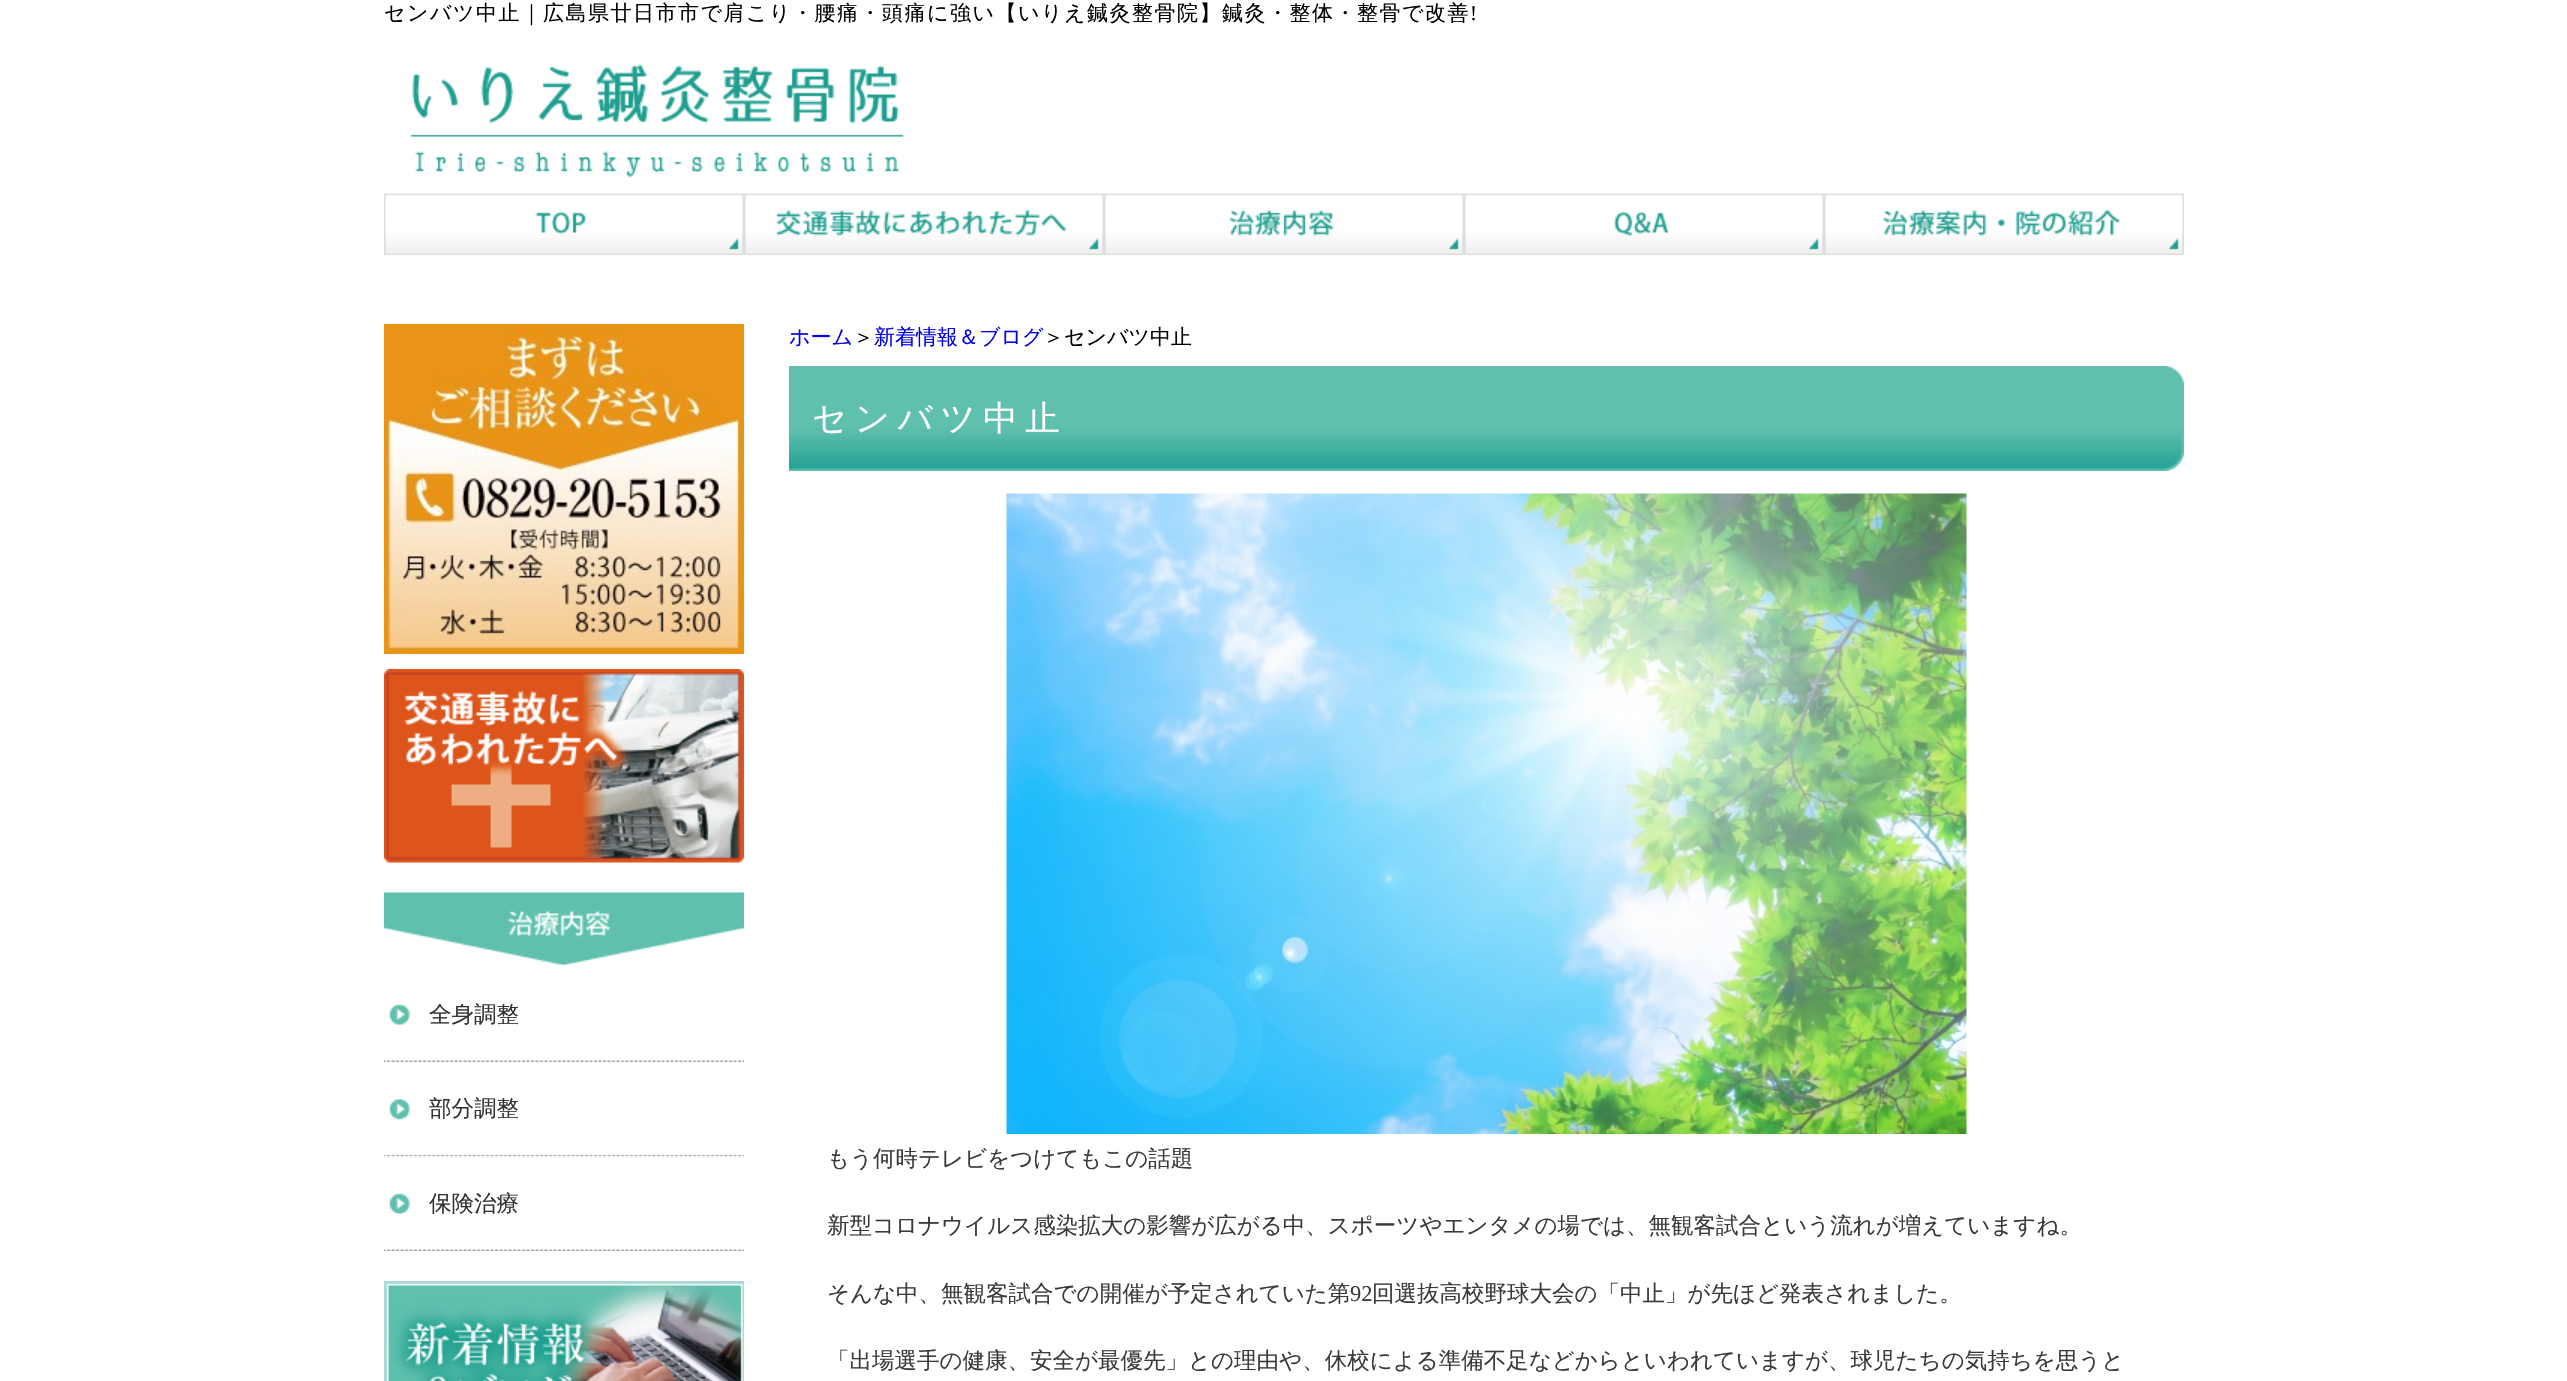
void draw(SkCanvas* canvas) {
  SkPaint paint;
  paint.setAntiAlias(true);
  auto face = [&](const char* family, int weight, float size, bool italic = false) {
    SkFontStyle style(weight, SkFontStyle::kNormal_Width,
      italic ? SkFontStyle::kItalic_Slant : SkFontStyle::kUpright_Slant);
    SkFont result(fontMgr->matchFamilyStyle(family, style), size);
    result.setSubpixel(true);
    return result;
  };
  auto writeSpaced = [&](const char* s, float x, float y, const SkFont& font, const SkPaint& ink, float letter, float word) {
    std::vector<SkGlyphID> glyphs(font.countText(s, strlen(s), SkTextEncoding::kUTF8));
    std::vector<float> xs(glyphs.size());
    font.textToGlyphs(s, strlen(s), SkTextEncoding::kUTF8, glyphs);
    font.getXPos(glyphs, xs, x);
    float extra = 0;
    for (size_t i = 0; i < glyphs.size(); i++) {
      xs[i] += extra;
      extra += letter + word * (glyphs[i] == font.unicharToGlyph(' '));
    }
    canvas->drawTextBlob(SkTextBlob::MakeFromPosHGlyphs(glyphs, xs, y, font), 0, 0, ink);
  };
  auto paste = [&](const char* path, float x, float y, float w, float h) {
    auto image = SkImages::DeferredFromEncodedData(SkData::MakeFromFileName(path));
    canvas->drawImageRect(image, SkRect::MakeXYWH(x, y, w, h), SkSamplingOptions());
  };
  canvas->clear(0xffffffff);
  paste("img/1.png", 410, 64, 494, 114);
  paste("img/2.png", 384, 193, 360, 62);
  paste("img/3.png", 744, 193, 360, 62);
  paste("img/4.png", 1104, 193, 360, 62);
  paste("img/5.png", 1464, 193, 360, 62);
  paste("img/6.png", 1824, 193, 360, 62);
  paste("img/7.png", 384, 324, 360, 330);
  paste("img/8.png", 384, 669, 360, 194);
  paste("img/9.png", 384, 892, 360, 75);
  paste("img/10.png", 384, 1004, 360, 58);
  paste("img/11.png", 384, 1099, 360, 58);
  paste("img/12.png", 384, 1156, 360, 95);
  paste("img/13.png", 384, 1281, 360, 100);
  paste("img/14.png", 789, 366, 1395, 105);
  paste("img/15.png", 1006, 493, 961, 641);
  auto f0 = face("WenQuanYi Zen Hei", 500, 21);
  paint.setColor(0xff000000);
  writeSpaced("センバツ中止｜広島県廿日市市で肩こり・腰痛・頭痛に強い【いりえ鍼灸整骨院】鍼灸・整体・整骨で改善", 384, 20, f0, paint, 1.5f, 0);
  auto f1 = face("Liberation Serif", 400, 21);
  writeSpaced("!", 1470, 20, f1, paint, 1.5f, 0);
  auto f2 = face("WenQuanYi Zen Hei", 500, 22.5f);
  paint.setColor(0xff333333);
  {
    const struct { const char* s; float x, y; } items[] = {
      {"全身調整", 429, 1022},
      {"部分調整", 429, 1116},
      {"保険治療", 429, 1211},
    };
    for (auto [s, x, y] : items) {
      canvas->drawString(s, x, y, f2, paint);
    }
  }
  paint.setColor(0xff0000ee);
  canvas->drawString("ホーム", 789, 344, f0, paint);
  paint.setColor(0xff000000);
  canvas->drawString("＞", 853, 344, f0, paint);
  paint.setColor(0xff0000ee);
  canvas->drawString("新着情報＆ブログ", 874, 344, f0, paint);
  paint.setColor(0xff000000);
  canvas->drawString("＞センバツ中止", 1043, 344, f0, paint);
  auto f3 = face("WenQuanYi Zen Hei", 500, 34.5f);
  paint.setColor(0xffffffff);
  writeSpaced("センバツ中止", 812, 430, f3, paint, 7.5f, 0);
  paint.setColor(0xff3a3a3a);
  {
    const struct { const char* s; float x, y; } items[] = {
      {"もう何時テレビをつけてもこの話題", 827, 1166},
      {"新型コロナウイルス感染拡大の影響が広がる中、スポーツやエンタメの場では、無観客試合という流れが増えていますね。", 827, 1233},
      {"そんな中、無観客試合での開催が予定されていた第", 827, 1301},
    };
    for (auto [s, x, y] : items) {
      canvas->drawString(s, x, y, f2, paint);
    }
  }
  auto f4 = face("Liberation Serif", 400, 22.5f);
  canvas->drawString("92", 1350, 1301, f4, paint);
  canvas->drawString("回選抜高校野球大会の「中止」が先ほど発表されました。", 1372, 1301, f2, paint);
  canvas->drawString("「出場選手の健康、安全が最優先」との理由や、休校による準備不足などからといわれていますが、球児たちの気持ちを思うと", 827, 1368, f2, paint);
}
